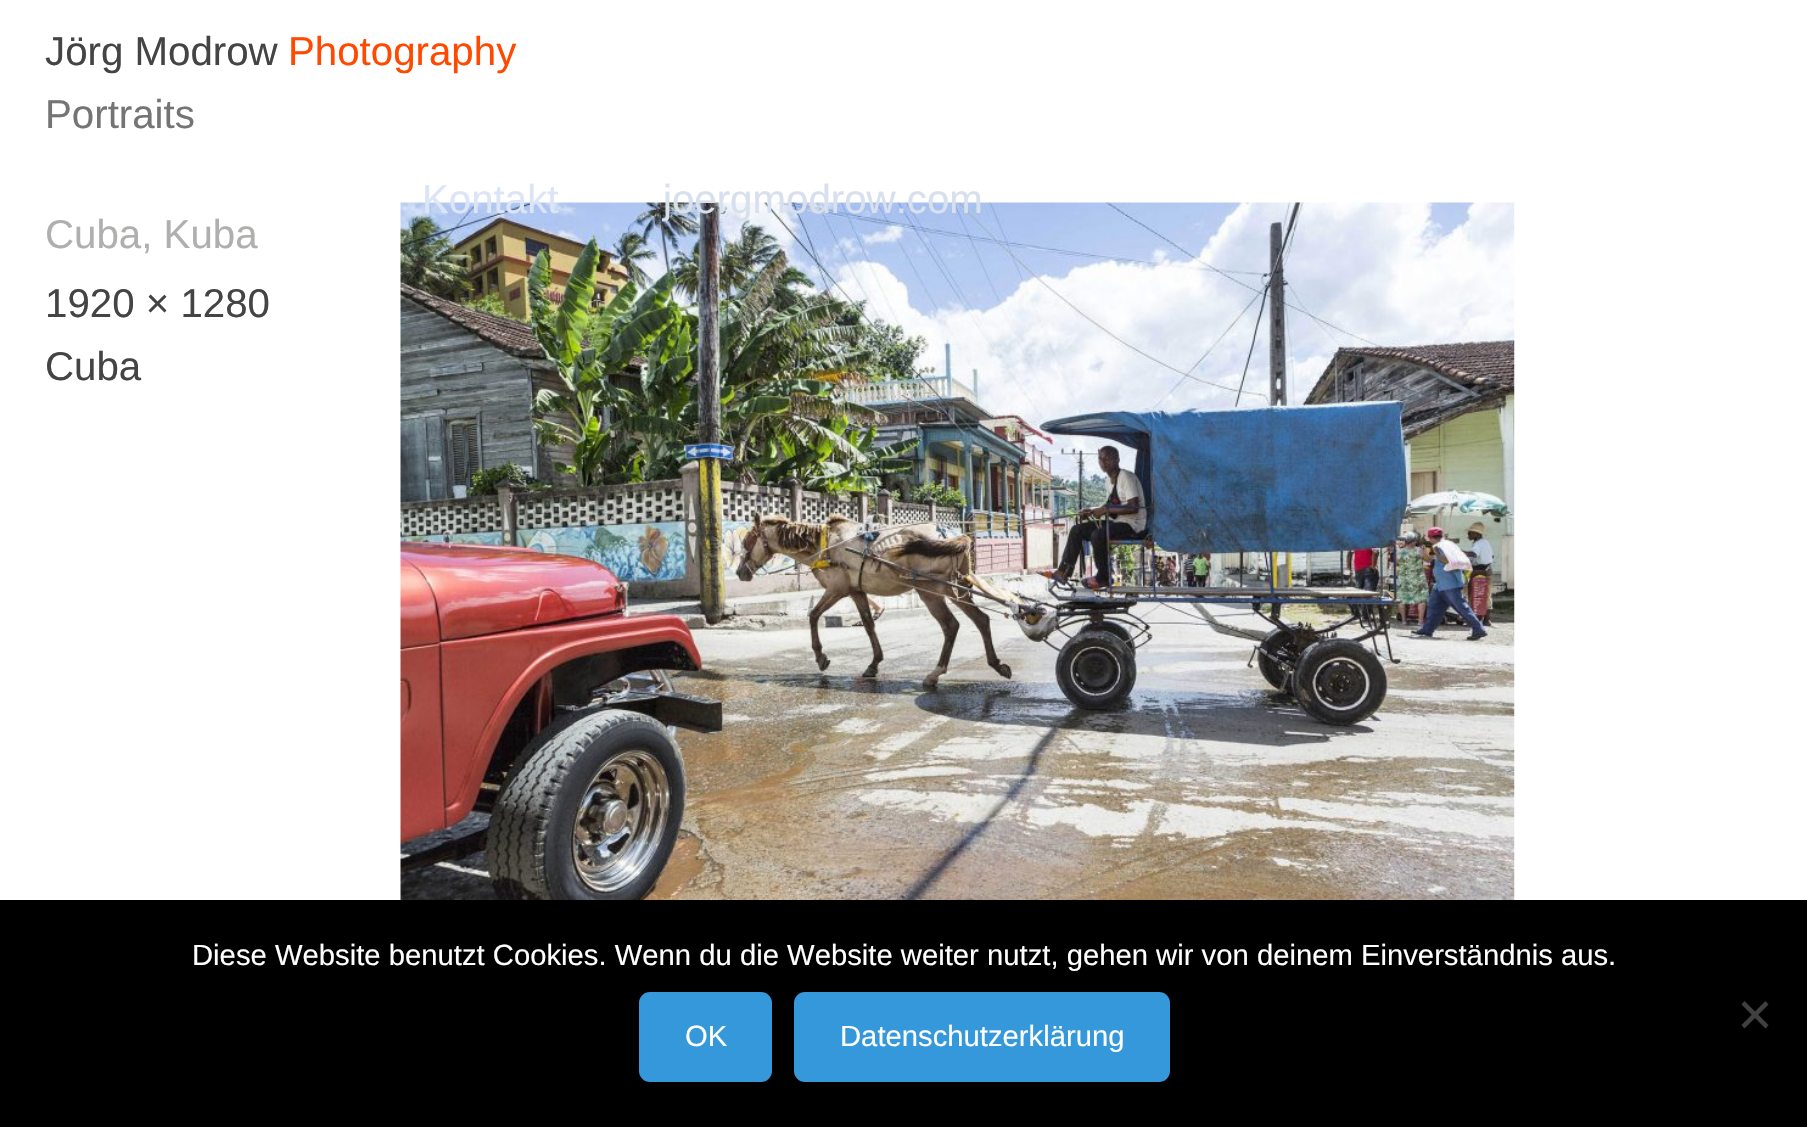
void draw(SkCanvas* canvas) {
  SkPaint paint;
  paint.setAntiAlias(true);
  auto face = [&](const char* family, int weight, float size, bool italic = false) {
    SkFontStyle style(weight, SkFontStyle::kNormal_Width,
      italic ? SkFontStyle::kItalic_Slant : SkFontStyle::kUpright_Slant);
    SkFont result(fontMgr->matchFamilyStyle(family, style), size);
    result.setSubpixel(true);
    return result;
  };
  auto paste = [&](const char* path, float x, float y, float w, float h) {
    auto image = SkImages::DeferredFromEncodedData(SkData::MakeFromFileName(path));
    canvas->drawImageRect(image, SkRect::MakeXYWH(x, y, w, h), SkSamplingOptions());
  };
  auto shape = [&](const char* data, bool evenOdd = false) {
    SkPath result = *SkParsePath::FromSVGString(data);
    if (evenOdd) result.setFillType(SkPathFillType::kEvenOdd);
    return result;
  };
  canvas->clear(0xffffffff);
  paste("img/1.png", 400, 202, 1115, 698);
  paint.setColor(0xff000000);
  canvas->drawRect(SkRect::MakeXYWH(0, 900, 1807, 227), paint);
  paint.setColor(0xff404040);
  canvas->drawPath(shape("M1765.5 1001L1768.5 1004.5L1744.5 1028.5L1741.5 1025Z"), paint);
  canvas->drawPath(shape("M1741.5 1004.5L1744.5 1001L1768.5 1025L1765.5 1028.5Z"), paint);
  paint.setColor(0xff3498db);
  canvas->drawRoundRect(SkRect::MakeXYWH(639, 992, 133, 90), 11, 11, paint);
  canvas->drawRoundRect(SkRect::MakeXYWH(794, 992, 376, 90), 11, 11, paint);
  auto f0 = face("Liberation Sans", 400, 40.25f);
  paint.setColor(0xff444444);
  canvas->drawString("Jörg Modrow", 45, 65, f0, paint);
  paint.setColor(0xffff4800);
  canvas->drawString("Photography", 288, 65, f0, paint);
  paint.setColor(0xff747474);
  canvas->drawString("Portraits", 45, 128, f0, paint);
  paint.setColor(0xffdce5f6);
  canvas->drawString("Kontakt", 422, 213, f0, paint);
  paint.setColor(0xffd8e0ed);
  canvas->drawString("joergmodrow.com", 663, 213, f0, paint);
  paint.setColor(0xffafb0ae);
  canvas->drawString("Cuba, Kuba", 45, 248, f0, paint);
  paint.setColor(0xff444444);
  canvas->drawString("1920 × 1280", 45, 317, f0, paint);
  canvas->drawString("Cuba", 45, 380, f0, paint);
  auto f1 = face("Liberation Sans", 400, 29.25f);
  paint.setColor(0xffffffff);
  {
    const struct { const char* s; float x, y; } items[] = {
      {"Diese Website benutzt Cookies. Wenn du die Website weiter nutzt, gehen wir von deinem Einverständnis aus.", 192, 965},
      {"OK", 685, 1046},
      {"Datenschutzerklärung", 840, 1046},
    };
    for (auto [s, x, y] : items) {
      canvas->drawString(s, x, y, f1, paint);
    }
  }
}
